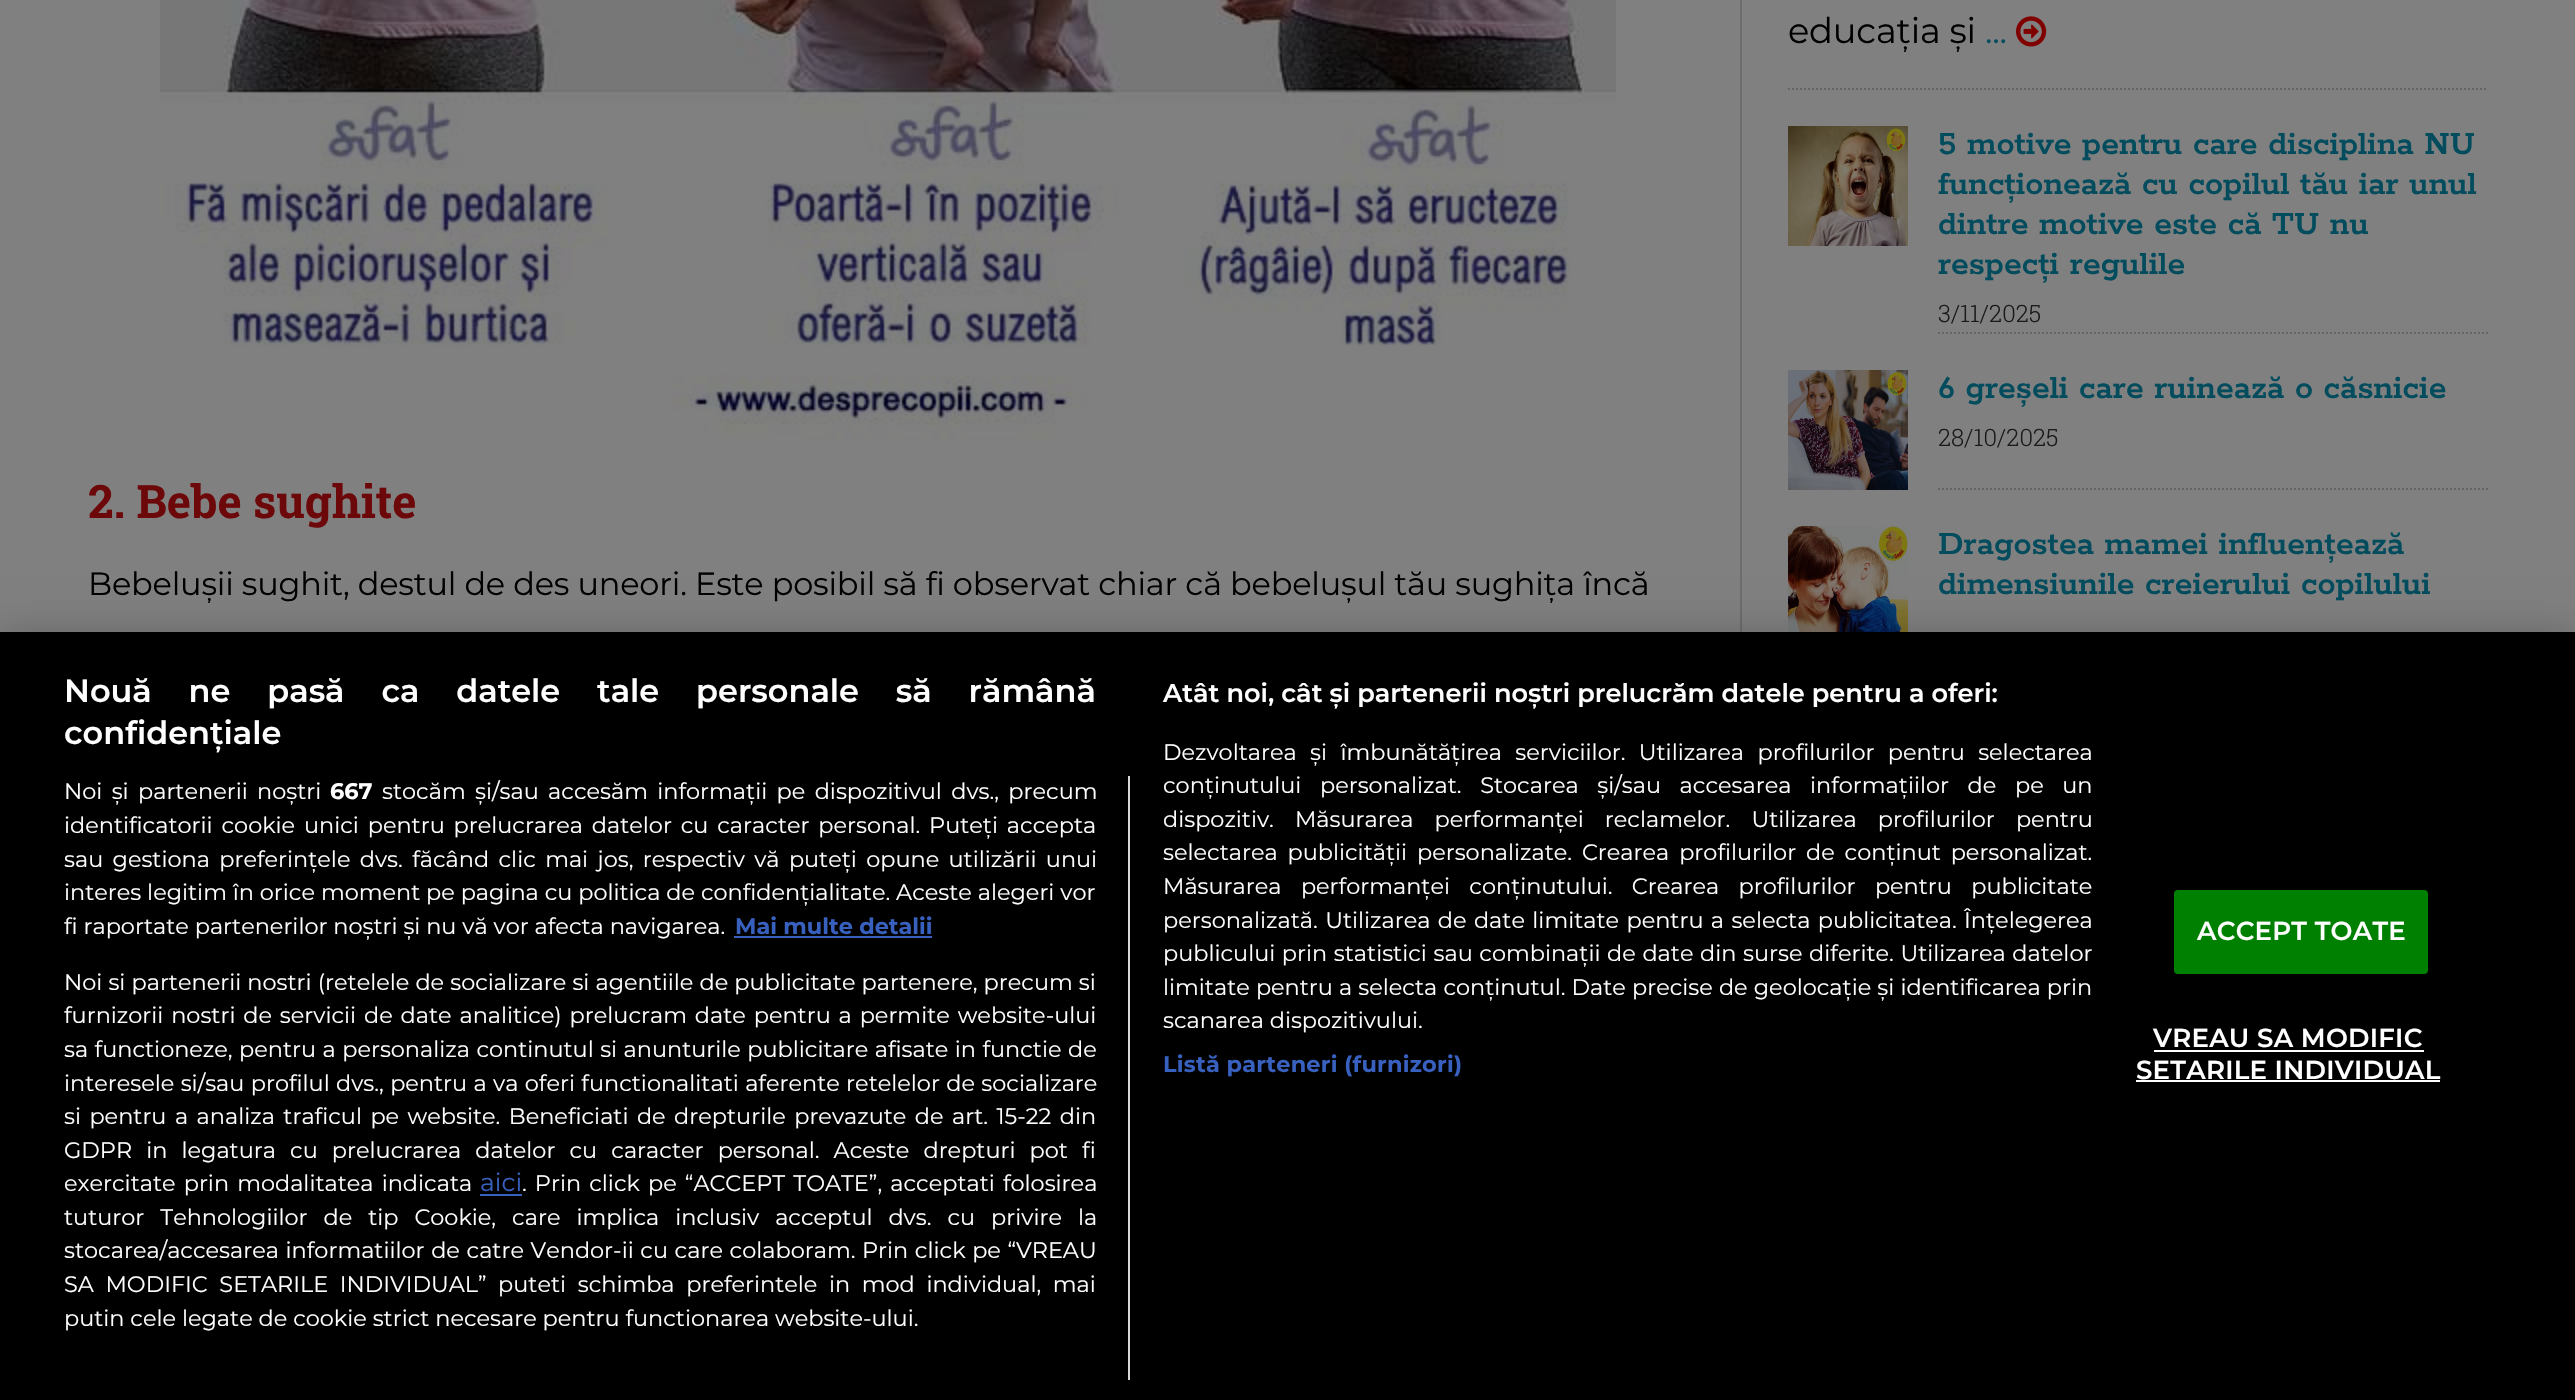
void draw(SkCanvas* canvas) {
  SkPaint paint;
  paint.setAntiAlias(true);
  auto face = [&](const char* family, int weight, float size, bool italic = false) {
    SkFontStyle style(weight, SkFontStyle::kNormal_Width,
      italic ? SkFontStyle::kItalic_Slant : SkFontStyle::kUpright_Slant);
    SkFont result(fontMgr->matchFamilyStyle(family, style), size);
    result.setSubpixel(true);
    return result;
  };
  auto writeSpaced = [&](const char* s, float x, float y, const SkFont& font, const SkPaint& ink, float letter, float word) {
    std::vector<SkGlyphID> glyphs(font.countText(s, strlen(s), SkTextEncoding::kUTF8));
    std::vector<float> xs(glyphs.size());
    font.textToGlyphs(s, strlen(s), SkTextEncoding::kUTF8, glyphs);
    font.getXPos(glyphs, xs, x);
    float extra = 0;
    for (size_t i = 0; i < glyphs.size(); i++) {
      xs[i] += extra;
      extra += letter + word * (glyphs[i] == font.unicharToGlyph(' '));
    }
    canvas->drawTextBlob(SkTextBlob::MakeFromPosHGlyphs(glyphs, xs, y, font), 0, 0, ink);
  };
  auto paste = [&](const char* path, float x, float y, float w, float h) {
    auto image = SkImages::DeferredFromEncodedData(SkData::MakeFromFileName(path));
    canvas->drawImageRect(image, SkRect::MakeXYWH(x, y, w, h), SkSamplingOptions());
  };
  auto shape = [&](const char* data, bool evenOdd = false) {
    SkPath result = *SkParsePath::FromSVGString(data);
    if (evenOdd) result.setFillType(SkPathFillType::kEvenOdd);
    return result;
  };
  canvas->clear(0xff808080);
  paste("img/1.png", 160, 0, 1456, 440);
  paint.setColor(0xff6d6d6d);
  canvas->drawRect(SkRect::MakeXYWH(1740, 0, 2, 632), paint);
  paint.setStroke(true);
  paint.setStrokeWidth(2);
  paint.setColor(0xff666666);
  paint.setPathEffect(SkDashPathEffect::Make({{2, 2}}, 0));
  canvas->drawPath(shape("M1788 89H2488"), paint);
  paint.setPathEffect(nullptr);
  paste("img/2.png", 2016, 16, 31, 31);
  paste("img/3.png", 1788, 126, 120, 120);
  paint.setPathEffect(SkDashPathEffect::Make({{2, 2}}, 0));
  canvas->drawPath(shape("M1938 333H2488"), paint);
  paint.setPathEffect(nullptr);
  paste("img/4.png", 1788, 370, 120, 120);
  paint.setPathEffect(SkDashPathEffect::Make({{2, 2}}, 0));
  canvas->drawPath(shape("M1938 489H2488"), paint);
  paint.setPathEffect(nullptr);
  paste("img/5.png", 1788, 526, 120, 106);
  paint.setStroke(false);
  paint.setColor(0x33000000);
  paint.setMaskFilter(SkMaskFilter::MakeBlur(kNormal_SkBlurStyle, 18));
  canvas->drawRect(SkRect::MakeXYWH(0, 632, 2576, 768), paint);
  paint.setMaskFilter(nullptr);
  {
    const struct { float x, y, w, h; SkColor color; } items[] = {
      {0, 632, 2575, 768, 0xff000000},
      {1128, 776, 2, 604, 0xffd8d8d8},
      {734, 936, 198, 2, 0xff3860be},
      {480, 1194, 42, 2, 0xff3860be},
    };
    for (auto [x, y, w, h, color] : items) {
      paint.setColor(color);
      canvas->drawRect(SkRect::MakeXYWH(x, y, w, h), paint);
    }
  }
  paint.setColor(0xff008000);
  canvas->drawRoundRect(SkRect::MakeXYWH(2175, 891, 252, 82), 3, 3, paint);
  paint.setStroke(true);
  canvas->drawRoundRect(SkRect::MakeXYWH(2175, 891, 252, 82), 3, 3, paint);
  paint.setStroke(false);
  paint.setColor(0xffffffff);
  canvas->drawRect(SkRect::MakeXYWH(2154, 1050, 270, 2), paint);
  canvas->drawRect(SkRect::MakeXYWH(2136, 1080, 304, 2), paint);
  auto f0 = face("Roboto Slab", 700, 46);
  paint.setColor(0xff6d080a);
  canvas->drawString("2. Bebe sughite", 88, 518, f0, paint);
  auto f1 = face("Montserrat", 400, 32);
  paint.setColor(0xff000000);
  writeSpaced("Bebelușii sughit, destul de des uneori. Este posibil să fi observat chiar că bebelușul tău sughița încă", 88, 595, f1, paint, -0.2f, 0);
  auto f2 = face("Montserrat", 400, 35.25f);
  writeSpaced("educația și", 1788, 43, f2, paint, -0.2f, 0);
  paint.setColor(0xff034c5d);
  writeSpaced("...", 1985, 43, f2, paint, -0.2f, 0);
  auto f3 = face("Rokkitt", 600, 36);
  {
    const struct { const char* s; float x, y; } items[] = {
      {"5 motive pentru care disciplina NU", 1938, 154},
      {"funcționează cu copilul tău iar unul", 1938, 194},
      {"dintre motive este că TU nu", 1938, 234},
      {"respecți regulile", 1938, 274},
    };
    for (auto [s, x, y] : items) {
      canvas->drawString(s, x, y, f3, paint);
    }
  }
  auto f4 = face("Roboto Slab", 300, 24);
  paint.setColor(0xff1a1a1a);
  canvas->drawString("3/11/2025", 1938, 322, f4, paint);
  paint.setColor(0xff034c5d);
  canvas->drawString("6 greșeli care ruinează o căsnicie", 1938, 398, f3, paint);
  paint.setColor(0xff1a1a1a);
  canvas->drawString("28/10/2025", 1938, 446, f4, paint);
  paint.setColor(0xff034c5d);
  canvas->drawString("Dragostea mamei influențează", 1938, 554, f3, paint);
  canvas->drawString("dimensiunile creierului copilului", 1938, 594, f3, paint);
  auto f5 = face("Montserrat", 600, 32);
  paint.setColor(0xffffffff);
  writeSpaced("Nouă ne pasă ca datele tale personale să rămână", 64, 702, f5, paint, 0, 28);
  canvas->drawString("confidențiale", 64, 744, f5, paint);
  auto f6 = face("Montserrat", 600, 25.6f);
  canvas->drawString("Atât noi, cât și partenerii noștri prelucrăm datele pentru a oferi:", 1163, 702, f6, paint);
  auto f7 = face("Montserrat", 400, 22.4f);
  writeSpaced("Dezvoltarea și îmbunătățirea serviciilor. Utilizarea profilurilor pentru selectarea", 1163, 760, f7, paint, 0, 7.5f);
  writeSpaced("conținutului personalizat. Stocarea și/sau accesarea informațiilor de pe un", 1163, 793, f7, paint, 0, 12.75f);
  writeSpaced("dispozitiv. Măsurarea performanței reclamelor. Utilizarea profilurilor pentru", 1163, 827, f7, paint, 0, 15.25f);
  writeSpaced("selectarea publicității personalizate. Crearea profilurilor de conținut personalizat.", 1163, 860, f7, paint, 0, 4);
  writeSpaced("Măsurarea performanței conținutului. Crearea profilurilor pentru publicitate", 1163, 894, f7, paint, 0, 13.5f);
  writeSpaced("personalizată. Utilizarea de date limitate pentru a selecta publicitatea. Înțelegerea", 1163, 928, f7, paint, 0, 1.5f);
  writeSpaced("publicului prin statistici sau combinații de date din surse diferite. Utilizarea datelor", 1163, 961, f7, paint, 0, 0.75f);
  writeSpaced("limitate pentru a selecta conținutul. Date precise de geolocație și identificarea prin", 1163, 995, f7, paint, 0, 0.25f);
  canvas->drawString("scanarea dispozitivului.", 1163, 1028, f7, paint);
  auto f8 = face("Montserrat", 700, 22.4f);
  paint.setColor(0xff3860be);
  writeSpaced("Listă parteneri (furnizori)", 1163, 1072, f8, paint, 0.25f, 0);
  paint.setColor(0xffffffff);
  writeSpaced("Noi și partenerii noștri", 64, 799, f7, paint, 0, 3.5f);
  canvas->drawString("667", 330, 799, f8, paint);
  writeSpaced("stocăm și/sau accesăm informații pe dispozitivul dvs., precum", 382, 799, f7, paint, 0, 3.5f);
  writeSpaced("identificatorii cookie unici pentru prelucrarea datelor cu caracter personal. Puteți accepta", 64, 833, f7, paint, 0, 3);
  writeSpaced("sau gestiona preferințele dvs. făcând clic mai jos, respectiv vă puteți opune utilizării unui", 64, 867, f7, paint, 0, 3.5f);
  canvas->drawString("interes legitim în orice moment pe pagina cu politica de confidențialitate. Aceste alegeri vor", 64, 900, f7, paint);
  canvas->drawString("fi raportate partenerilor noștri și nu vă vor afecta navigarea.", 64, 934, f7, paint);
  paint.setColor(0xff3860be);
  canvas->drawString("Mai multe detalii", 735, 934, f8, paint);
  paint.setColor(0xffffffff);
  writeSpaced("Noi si partenerii nostri (retelele de socializare si agentiile de publicitate partenere, precum si", 64, 990, f7, paint, 0, 0.25f);
  writeSpaced("furnizorii nostri de servicii de date analitice) prelucram date pentru a permite website-ului", 64, 1023, f7, paint, 0, 2);
  writeSpaced("sa functioneze, pentru a personaliza continutul si anunturile publicitare afisate in functie de", 64, 1057, f7, paint, 0, 0.6f);
  writeSpaced("interesele si/sau profilul dvs., pentru a va oferi functionalitati aferente retelelor de socializare", 64, 1091, f7, paint, 0, 0.5f);
  writeSpaced("si pentru a analiza traficul pe website. Beneficiati de drepturile prevazute de art. 15-22 din", 64, 1124, f7, paint, 0, 2.6f);
  writeSpaced("GDPR in legatura cu prelucrarea datelor cu caracter personal. Aceste drepturi pot fi", 64, 1158, f7, paint, 0, 8.25f);
  writeSpaced("exercitate prin modalitatea indicata", 64, 1191, f7, paint, 0, 2.25f);
  auto f9 = face("Montserrat", 400, 25);
  paint.setColor(0xff3860be);
  canvas->drawString("aici", 480, 1191, f9, paint);
  paint.setColor(0xffffffff);
  writeSpaced(". Prin click pe “ACCEPT TOATE”, acceptati folosirea", 522, 1191, f7, paint, 0, 2.25f);
  writeSpaced("tuturor Tehnologiilor de tip Cookie, care implica inclusiv acceptul dvs. cu privire la", 64, 1225, f7, paint, 0, 10.1f);
  writeSpaced("stocarea/accesarea informatiilor de catre Vendor-ii cu care colaboram. Prin click pe “VREAU", 64, 1258, f7, paint, 0, 0.75f);
  writeSpaced("SA MODIFIC SETARILE INDIVIDUAL” puteti schimba preferintele in mod individual, mai", 64, 1292, f7, paint, 0, 5.75f);
  canvas->drawString("putin cele legate de cookie strict necesare pentru functionarea website-ului.", 64, 1326, f7, paint);
  auto f10 = face("Montserrat", 600, 26);
  {
    const struct { const char* s; float x, y; } items[] = {
      {"ACCEPT TOATE", 2197, 940},
      {"VREAU SA MODIFIC", 2153, 1047},
      {"SETARILE INDIVIDUAL", 2136, 1079},
    };
    for (auto [s, x, y] : items) {
      writeSpaced(s, x, y, f10, paint, 0.25f, 0);
    }
  }
}
